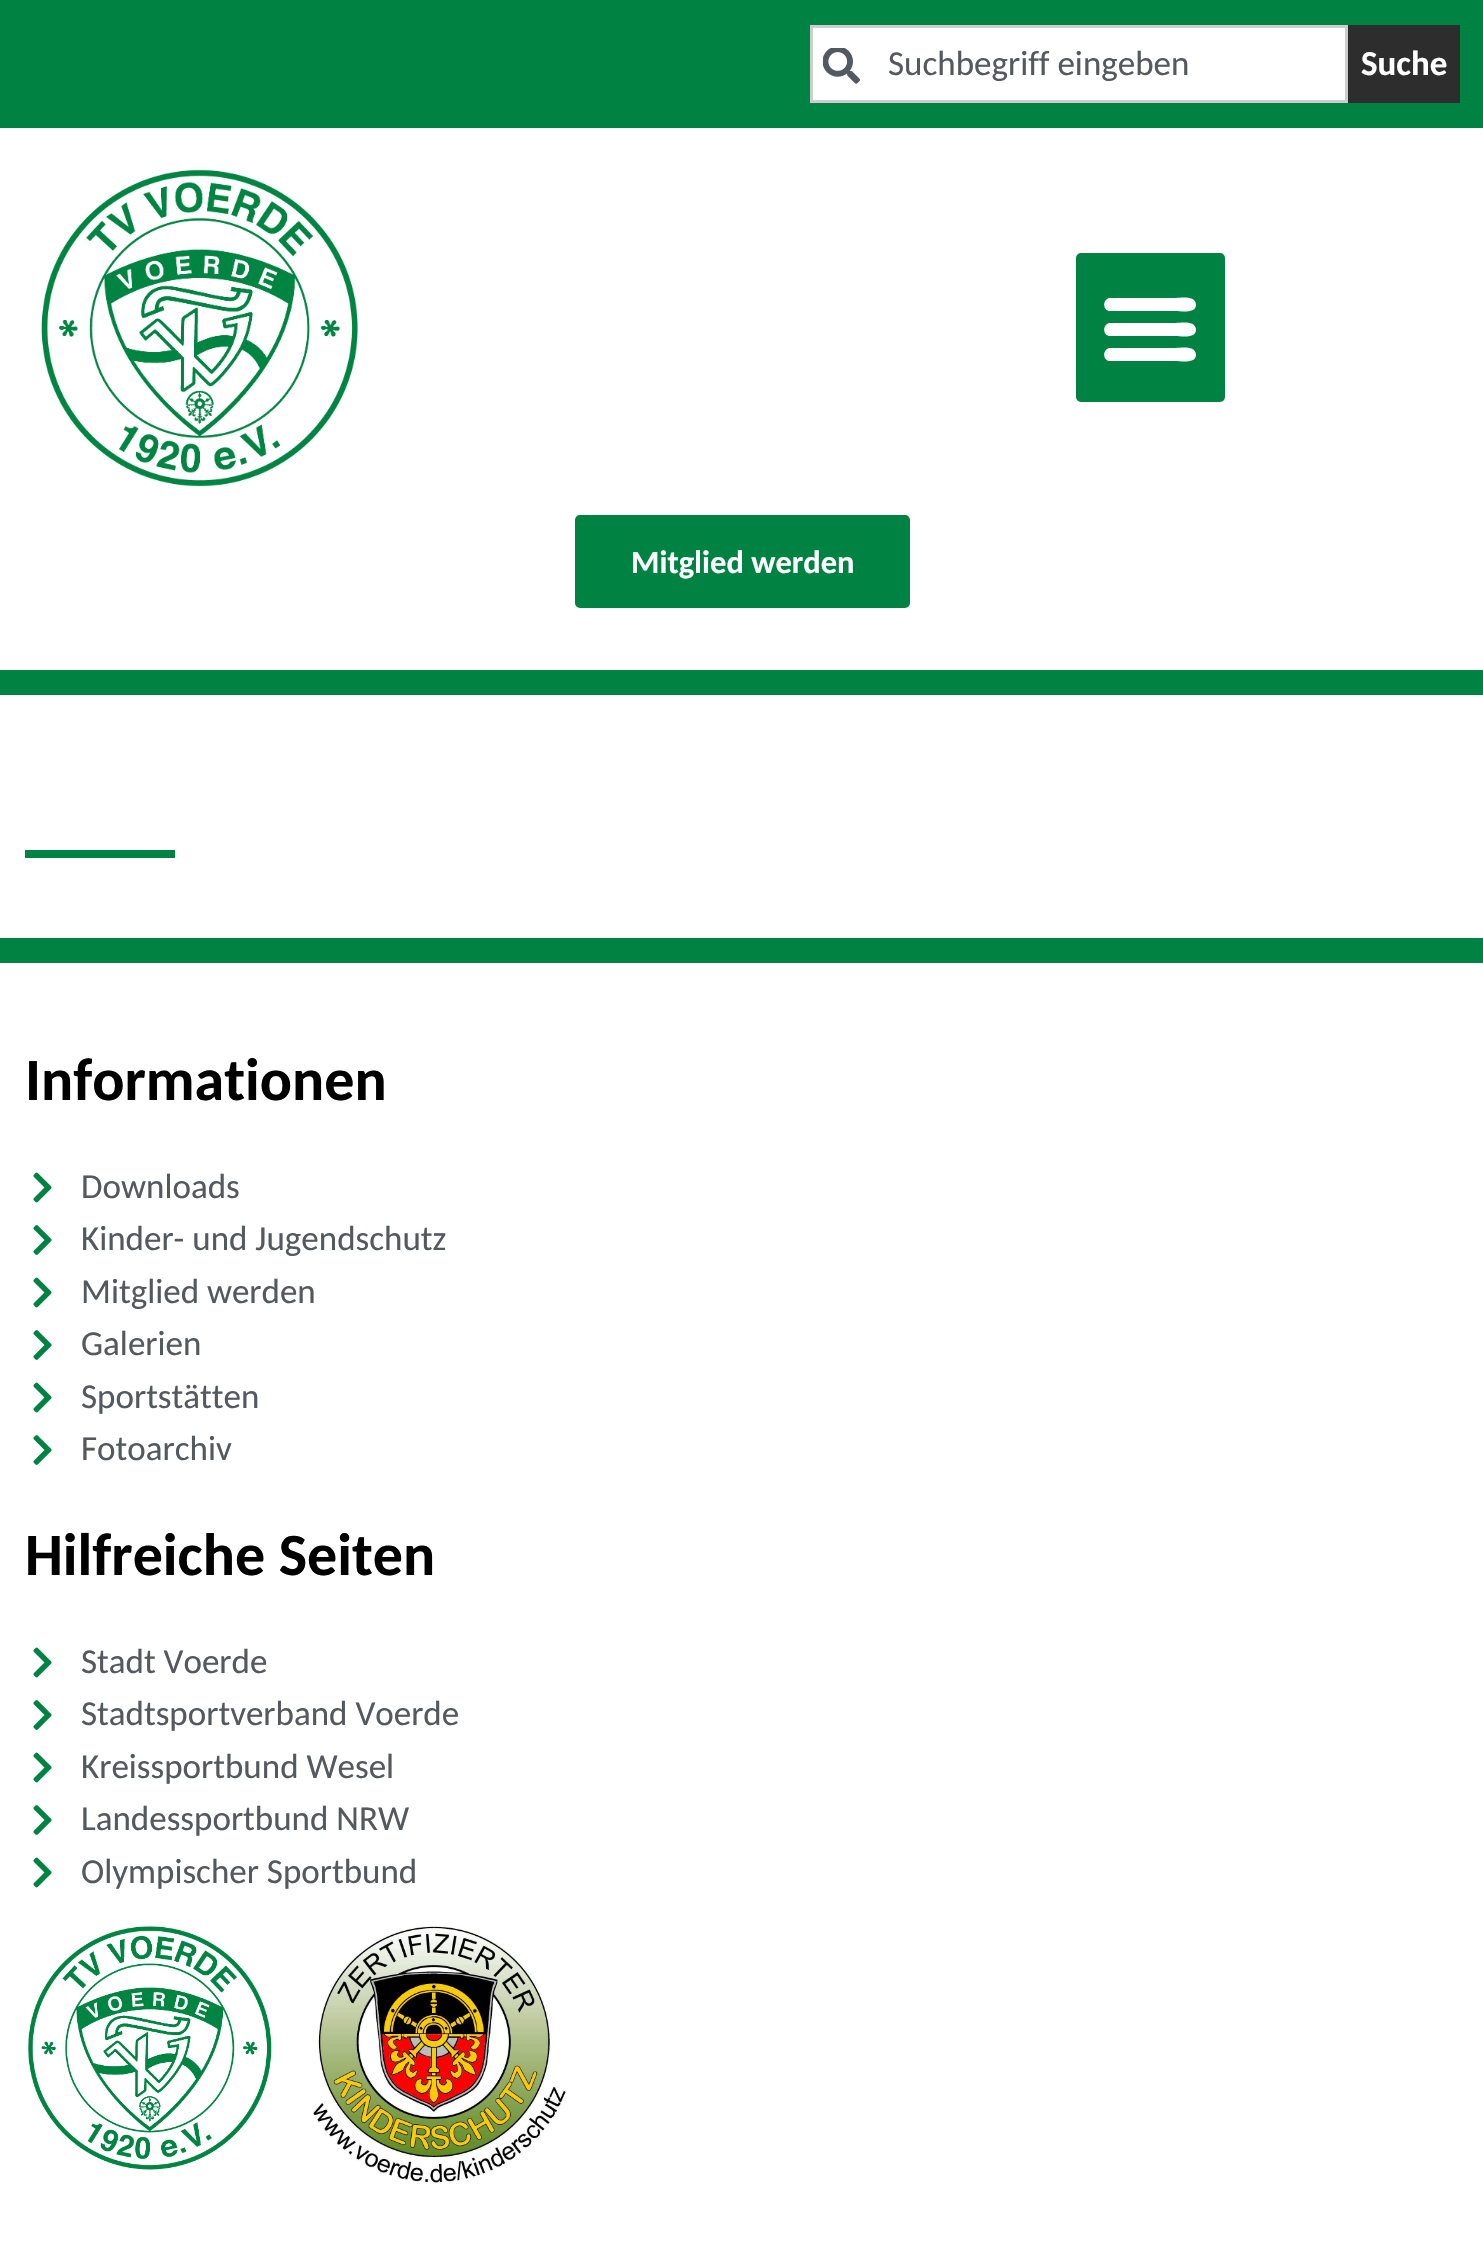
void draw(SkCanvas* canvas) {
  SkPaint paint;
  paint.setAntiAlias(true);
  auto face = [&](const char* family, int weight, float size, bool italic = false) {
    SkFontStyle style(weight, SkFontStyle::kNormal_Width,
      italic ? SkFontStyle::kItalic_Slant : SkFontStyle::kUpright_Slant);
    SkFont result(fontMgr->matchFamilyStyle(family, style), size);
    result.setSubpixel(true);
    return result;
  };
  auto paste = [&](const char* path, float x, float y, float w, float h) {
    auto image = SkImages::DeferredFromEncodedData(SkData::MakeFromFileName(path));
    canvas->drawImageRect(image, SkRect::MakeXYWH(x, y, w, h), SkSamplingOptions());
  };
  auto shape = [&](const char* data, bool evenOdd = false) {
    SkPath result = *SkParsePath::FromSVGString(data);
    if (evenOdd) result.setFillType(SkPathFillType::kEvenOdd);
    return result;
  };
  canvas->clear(0xffffffff);
  paint.setColor(0xff008342);
  canvas->drawRect(SkRect::MakeXYWH(0, 670, 1483, 25), paint);
  canvas->drawRect(SkRect::MakeXYWH(0, 0, 1483, 128), paint);
  paint.setColor(0xffffffff);
  canvas->drawRect(SkRect::MakeXYWH(811.5f, 26.5f, 535, 75), paint);
  paint.setStroke(true);
  paint.setStrokeWidth(3);
  paint.setColor(0xffcdcdcd);
  canvas->drawRect(SkRect::MakeXYWH(811.5f, 26.5f, 535, 75), paint);
  paste("img/1.png", 823, 48, 37, 36);
  paint.setStroke(false);
  paint.setColor(0xff2d2d2d);
  canvas->drawRect(SkRect::MakeXYWH(1348, 25, 112, 78), paint);
  paste("img/2.png", 41, 169, 317, 318);
  paint.setColor(0xff008342);
  canvas->drawRoundRect(SkRect::MakeXYWH(1074.5f, 251.5f, 152, 152), 6.5f, 6.5f, paint);
  paint.setStroke(true);
  paint.setColor(0xffffffff);
  canvas->drawRoundRect(SkRect::MakeXYWH(1074.5f, 251.5f, 152, 152), 6.5f, 6.5f, paint);
  paint.setStroke(false);
  canvas->drawPath(shape("M1110 311H1176C1180 311 1196 314 1196 305C1196 295 1180 298 1176 298H1109C1102 300 1103 311 1110 311ZM1110 336H1176C1180 336 1196 339 1196 330C1196 320 1180 323 1176 323H1109C1102 325 1103 336 1110 336ZM1110 361H1176C1180 361 1196 364 1196 355C1196 345 1180 348 1176 348H1109C1102 350 1103 361 1110 361Z"), paint);
  paint.setColor(0xff008342);
  canvas->drawRoundRect(SkRect::MakeXYWH(577.5f, 517.5f, 330, 88), 2.5f, 2.5f, paint);
  paint.setStroke(true);
  paint.setStrokeWidth(5);
  canvas->drawRoundRect(SkRect::MakeXYWH(577.5f, 517.5f, 330, 88), 2.5f, 2.5f, paint);
  paint.setStroke(false);
  canvas->drawRect(SkRect::MakeXYWH(25, 850, 150, 8), paint);
  canvas->drawRect(SkRect::MakeXYWH(0, 938, 1483, 25), paint);
  paste("img/3.png", 33, 1172, 19, 31);
  paste("img/4.png", 33, 1225, 19, 30);
  paste("img/3.png", 33, 1277, 19, 31);
  paste("img/4.png", 33, 1330, 19, 30);
  paste("img/3.png", 33, 1382, 19, 31);
  paste("img/4.png", 33, 1435, 19, 30);
  paste("img/3.png", 33, 1647, 19, 31);
  paste("img/4.png", 33, 1700, 19, 30);
  paste("img/3.png", 33, 1752, 19, 31);
  paste("img/4.png", 33, 1805, 19, 30);
  paste("img/3.png", 33, 1857, 19, 31);
  paste("img/5.png", 28, 1926, 244, 244);
  paste("img/6.png", 313, 1925, 254, 259);
  auto f0 = face("Carlito", 400, 35);
  paint.setColor(0xff54595f);
  canvas->drawString("Suchbegriff eingeben", 888, 75, f0, paint);
  auto f1 = face("Carlito", 700, 35);
  paint.setColor(0xffffffff);
  canvas->drawString("Suche", 1361, 75, f1, paint);
  auto f2 = face("Carlito", 700, 32.5f);
  canvas->drawString("Mitglied werden", 631, 573, f2, paint);
  auto f3 = face("Carlito", 700, 60);
  paint.setColor(0xff000000);
  canvas->drawString("Informationen", 25, 1100, f3, paint);
  paint.setColor(0xff54595f);
  {
    const struct { const char* s; float x, y; } items[] = {
      {"Downloads", 81, 1198},
      {"Kinder- und Jugendschutz", 81, 1250},
      {"Mitglied werden", 81, 1303},
      {"Galerien", 81, 1355},
      {"Sportstätten", 81, 1408},
      {"Fotoarchiv", 81, 1460},
    };
    for (auto [s, x, y] : items) {
      canvas->drawString(s, x, y, f0, paint);
    }
  }
  paint.setColor(0xff000000);
  canvas->drawString("Hilfreiche Seiten", 25, 1575, f3, paint);
  paint.setColor(0xff54595f);
  {
    const struct { const char* s; float x, y; } items[] = {
      {"Stadt Voerde", 81, 1673},
      {"Stadtsportverband Voerde", 81, 1725},
      {"Kreissportbund Wesel", 81, 1778},
      {"Landessportbund NRW", 81, 1830},
      {"Olympischer Sportbund", 81, 1883},
    };
    for (auto [s, x, y] : items) {
      canvas->drawString(s, x, y, f0, paint);
    }
  }
}
